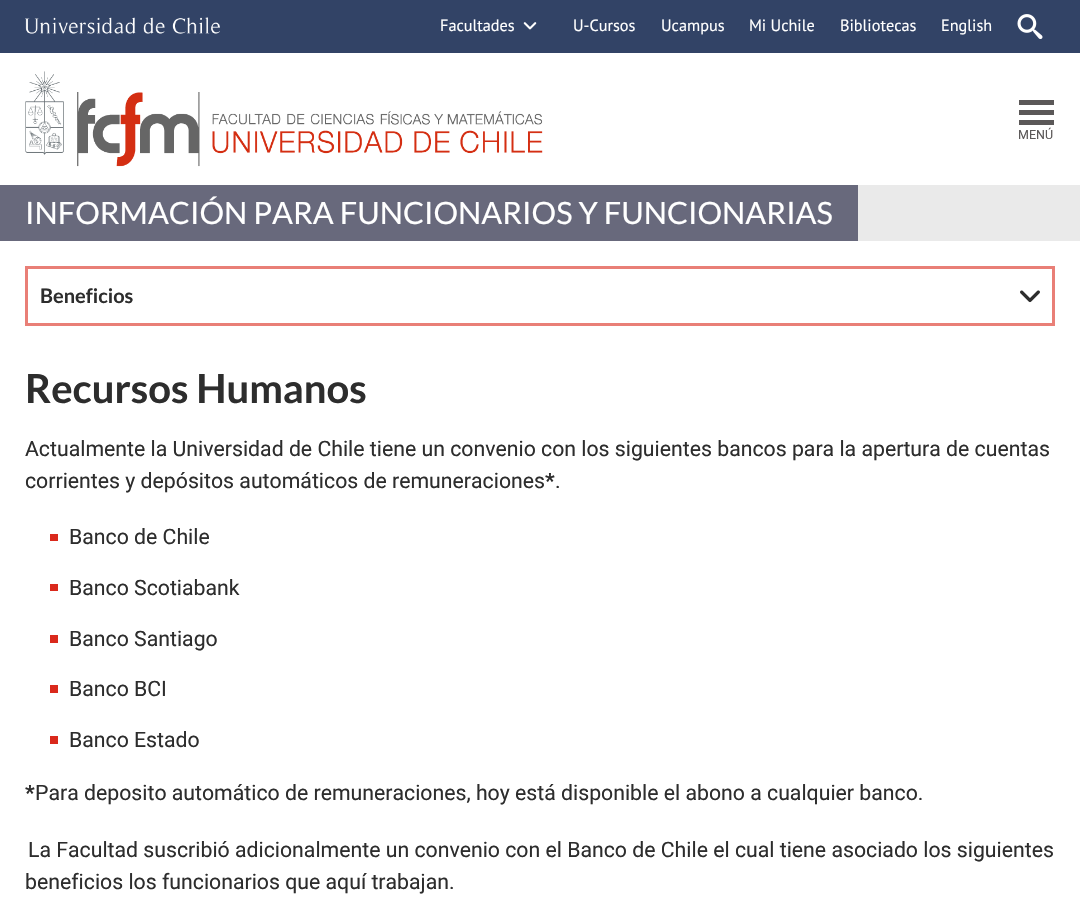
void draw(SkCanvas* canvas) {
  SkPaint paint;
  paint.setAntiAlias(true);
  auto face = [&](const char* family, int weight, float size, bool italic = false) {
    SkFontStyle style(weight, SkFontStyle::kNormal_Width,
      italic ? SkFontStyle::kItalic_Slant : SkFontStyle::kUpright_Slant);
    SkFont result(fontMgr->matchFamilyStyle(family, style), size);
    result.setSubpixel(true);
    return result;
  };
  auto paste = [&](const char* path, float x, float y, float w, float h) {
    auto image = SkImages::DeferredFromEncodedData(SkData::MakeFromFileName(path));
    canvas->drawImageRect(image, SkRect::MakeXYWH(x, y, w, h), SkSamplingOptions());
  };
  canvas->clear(0xffffffff);
  paint.setColor(0xff324366);
  canvas->drawRect(SkRect::MakeXYWH(0, 0, 1080, 53), paint);
  paste("img/1.png", 25, 17, 195, 17);
  paste("img/2.png", 523, 22, 14, 8);
  paste("img/3.png", 1017, 14, 26, 25);
  paste("img/4.png", 25, 71, 518, 96);
  {
    const struct { float x, y, w, h; SkColor color; } items[] = {
      {1019, 100, 35, 5, 0xff5b5858},
      {1019, 110, 35, 5, 0xff5b5858},
      {1019, 120, 35, 5, 0xff5b5858},
      {858, 185, 222, 56, 0xffeaeaea},
      {0, 185, 858, 56, 0xff68697c},
    };
    for (auto [x, y, w, h, color] : items) {
      paint.setColor(color);
      canvas->drawRect(SkRect::MakeXYWH(x, y, w, h), paint);
    }
  }
  paint.setStroke(true);
  paint.setStrokeWidth(3);
  paint.setColor(0xffe97f77);
  canvas->drawRect(SkRect::MakeXYWH(26.5f, 267.5f, 1027, 57), paint);
  paste("img/5.png", 1020, 290, 20, 13);
  paint.setStroke(false);
  {
    const struct { float x, y, w, h; SkColor color; } items[] = {
      {50, 534, 8, 7, 0xffda291c},
      {50, 584, 8, 7, 0xffda291c},
      {50, 635, 8, 8, 0xffda291c},
      {50, 685, 8, 8, 0xffda291c},
      {50, 736, 8, 8, 0xffda291c},
    };
    for (auto [x, y, w, h, color] : items) {
      paint.setColor(color);
      canvas->drawRect(SkRect::MakeXYWH(x, y, w, h), paint);
    }
  }
  auto f0 = face("PT Sans", 400, 16.25f);
  paint.setColor(0xffffffff);
  {
    const struct { const char* s; float x, y; } items[] = {
      {"Facultades", 440, 31},
      {"U-Cursos", 573, 31},
      {"Ucampus", 661, 31},
      {"Mi Uchile", 749, 31},
      {"Bibliotecas", 840, 31},
      {"English", 941, 31},
    };
    for (auto [s, x, y] : items) {
      canvas->drawString(s, x, y, f0, paint);
    }
  }
  auto f1 = face("Roboto", 400, 12.5f);
  paint.setColor(0xff5b5858);
  canvas->drawString("MENÚ", 1018, 139, f1, paint);
  auto f2 = face("Lato", 400, 30.8f);
  paint.setColor(0xffffffff);
  canvas->drawString("INFORMACIÓN PARA FUNCIONARIOS Y FUNCIONARIAS", 25, 224, f2, paint);
  auto f3 = face("Lato", 700, 20);
  paint.setColor(0xff2d2d2d);
  canvas->drawString("Beneficios", 40, 303, f3, paint);
  auto f4 = face("Lato", 700, 40);
  canvas->drawString("Recursos Humanos", 25, 403, f4, paint);
  auto f5 = face("Roboto", 400, 21.25f);
  canvas->drawString("Actualmente la Universidad de Chile tiene un convenio con los siguientes bancos para la apertura de cuentas", 25, 456, f5, paint);
  canvas->drawString("corrientes y depósitos automáticos de remuneraciones", 25, 488, f5, paint);
  auto f6 = face("Roboto", 700, 21.25f);
  canvas->drawString("*", 545, 488, f6, paint);
  {
    const struct { const char* s; float x, y; } items[] = {
      {".", 555, 488},
      {"Banco de Chile", 69, 544},
      {"Banco Scotiabank", 69, 595},
      {"Banco Santiago", 69, 646},
      {"Banco BCI", 69, 696},
      {"Banco Estado", 69, 747},
    };
    for (auto [s, x, y] : items) {
      canvas->drawString(s, x, y, f5, paint);
    }
  }
  canvas->drawString("*", 25, 800, f6, paint);
  {
    const struct { const char* s; float x, y; } items[] = {
      {"Para deposito automático de remuneraciones, hoy está disponible el abono a cualquier banco.", 35, 800},
      {"La Facultad suscribió adicionalmente un convenio con el Banco de Chile el cual tiene asociado los siguientes", 28, 857},
      {"beneficios los funcionarios que aquí trabajan.", 25, 889},
    };
    for (auto [s, x, y] : items) {
      canvas->drawString(s, x, y, f5, paint);
    }
  }
}
